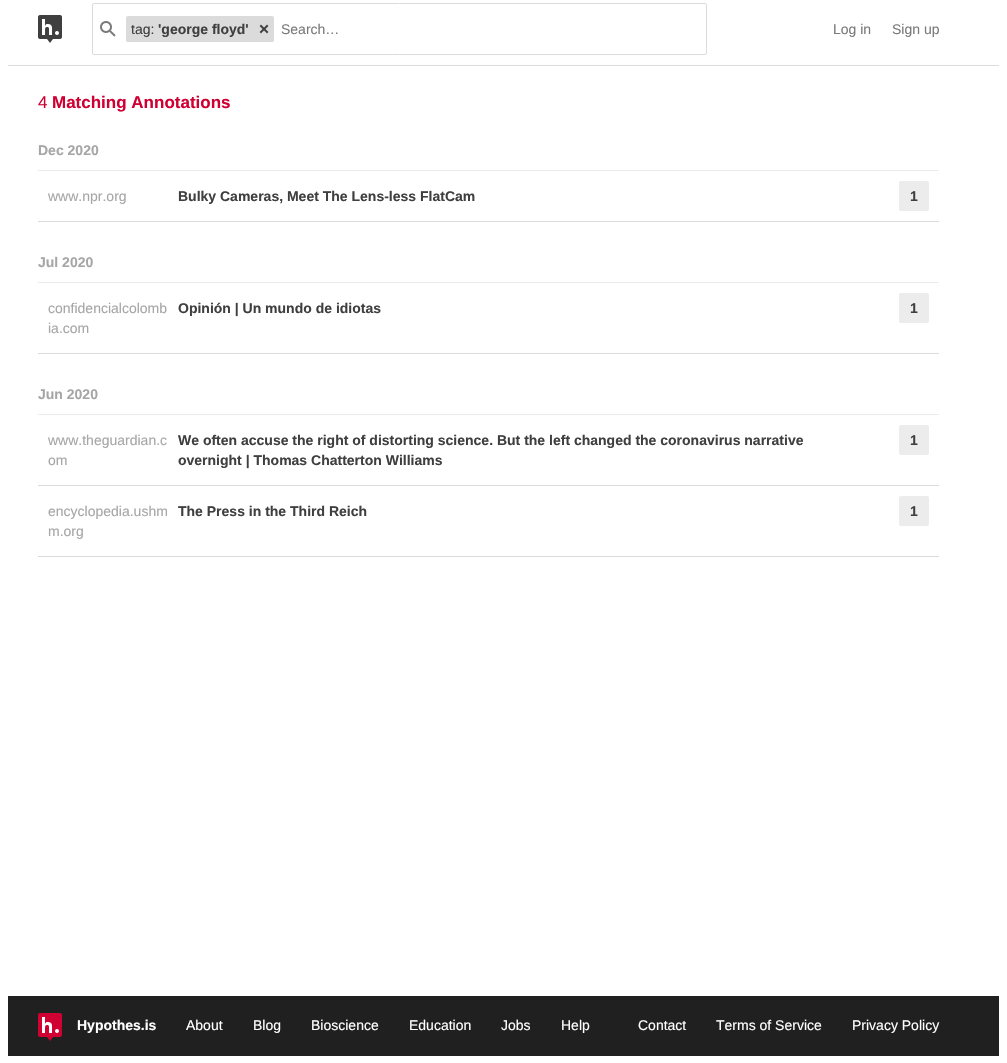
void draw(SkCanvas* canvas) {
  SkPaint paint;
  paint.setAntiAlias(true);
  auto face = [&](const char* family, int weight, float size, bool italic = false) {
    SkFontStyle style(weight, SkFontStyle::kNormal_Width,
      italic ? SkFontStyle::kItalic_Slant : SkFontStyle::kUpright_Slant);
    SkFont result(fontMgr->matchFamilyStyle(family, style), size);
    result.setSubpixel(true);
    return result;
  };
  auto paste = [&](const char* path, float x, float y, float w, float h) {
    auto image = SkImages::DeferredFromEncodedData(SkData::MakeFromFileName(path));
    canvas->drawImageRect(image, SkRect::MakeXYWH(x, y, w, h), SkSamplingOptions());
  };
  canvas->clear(0xffffffff);
  paint.setColor(0xffdbdbdb);
  canvas->drawRect(SkRect::MakeXYWH(8, 65, 991, 1), paint);
  paste("img/1.png", 38, 15, 24, 28);
  paint.setStroke(true);
  paint.setStrokeWidth(1);
  canvas->drawRoundRect(SkRect::MakeXYWH(92.5f, 3.5f, 614, 51), 1.5f, 1.5f, paint);
  paste("img/2.png", 100, 21, 16, 16);
  paint.setStroke(false);
  canvas->drawRoundRect(SkRect::MakeXYWH(126, 16, 148, 26), 2, 2, paint);
  paste("img/3.png", 259, 24, 10, 10);
  paint.setColor(0xffececec);
  canvas->drawRect(SkRect::MakeXYWH(38, 170, 901, 1), paint);
  paint.setColor(0xffdbdbdb);
  canvas->drawRect(SkRect::MakeXYWH(38, 221, 901, 1), paint);
  paint.setColor(0xffececec);
  canvas->drawRoundRect(SkRect::MakeXYWH(899, 181, 30, 30), 2, 2, paint);
  canvas->drawRect(SkRect::MakeXYWH(38, 282, 901, 1), paint);
  paint.setColor(0xffdbdbdb);
  canvas->drawRect(SkRect::MakeXYWH(38, 353, 901, 1), paint);
  paint.setColor(0xffececec);
  canvas->drawRoundRect(SkRect::MakeXYWH(899, 293, 30, 30), 2, 2, paint);
  canvas->drawRect(SkRect::MakeXYWH(38, 414, 901, 1), paint);
  paint.setColor(0xffdbdbdb);
  canvas->drawRect(SkRect::MakeXYWH(38, 485, 901, 1), paint);
  paint.setColor(0xffececec);
  canvas->drawRoundRect(SkRect::MakeXYWH(899, 425, 30, 30), 2, 2, paint);
  paint.setColor(0xffdbdbdb);
  canvas->drawRect(SkRect::MakeXYWH(38, 556, 901, 1), paint);
  paint.setColor(0xffececec);
  canvas->drawRoundRect(SkRect::MakeXYWH(899, 496, 30, 30), 2, 2, paint);
  paint.setColor(0xff202020);
  canvas->drawRect(SkRect::MakeXYWH(8, 996, 991, 60), paint);
  paste("img/4.png", 38, 1013, 24, 28);
  auto f0 = face("Liberation Sans", 400, 14);
  paint.setColor(0xff3f3f3f);
  canvas->drawString("tag:", 131, 34, f0, paint);
  auto f1 = face("Liberation Sans", 700, 14);
  canvas->drawString("'george floyd'", 158, 34, f1, paint);
  paint.setColor(0xff7a7a7a);
  {
    const struct { const char* s; float x, y; } items[] = {
      {"Search…", 281, 34},
      {"Log in", 833, 34},
      {"Sign up", 892, 34},
    };
    for (auto [s, x, y] : items) {
      canvas->drawString(s, x, y, f0, paint);
    }
  }
  auto f2 = face("Liberation Sans", 400, 17);
  paint.setColor(0xffd00032);
  canvas->drawString("4", 38, 108, f2, paint);
  auto f3 = face("Liberation Sans", 700, 17);
  canvas->drawString("Matching Annotations", 52, 108, f3, paint);
  paint.setColor(0xffa6a6a6);
  canvas->drawString("Dec 2020", 38, 155, f1, paint);
  canvas->drawString("www.npr.org", 48, 201, f0, paint);
  paint.setColor(0xff3f3f3f);
  canvas->drawString("Bulky Cameras, Meet The Lens-less FlatCam", 178, 201, f1, paint);
  canvas->drawString("1", 910, 201, f1, paint);
  paint.setColor(0xffa6a6a6);
  canvas->drawString("Jul 2020", 38, 267, f1, paint);
  canvas->drawString("confidencialcolomb", 48, 313, f0, paint);
  canvas->drawString("ia.com", 48, 333, f0, paint);
  paint.setColor(0xff3f3f3f);
  canvas->drawString("Opinión | Un mundo de idiotas", 178, 313, f1, paint);
  canvas->drawString("1", 910, 313, f1, paint);
  paint.setColor(0xffa6a6a6);
  canvas->drawString("Jun 2020", 38, 399, f1, paint);
  canvas->drawString("www.theguardian.c", 48, 445, f0, paint);
  canvas->drawString("om", 48, 465, f0, paint);
  paint.setColor(0xff3f3f3f);
  {
    const struct { const char* s; float x, y; } items[] = {
      {"We often accuse the right of distorting science. But the left changed the coronavirus narrative", 178, 445},
      {"overnight | Thomas Chatterton Williams", 178, 465},
      {"1", 910, 445},
    };
    for (auto [s, x, y] : items) {
      canvas->drawString(s, x, y, f1, paint);
    }
  }
  paint.setColor(0xffa6a6a6);
  canvas->drawString("encyclopedia.ushm", 48, 516, f0, paint);
  canvas->drawString("m.org", 48, 536, f0, paint);
  paint.setColor(0xff3f3f3f);
  canvas->drawString("The Press in the Third Reich", 178, 516, f1, paint);
  canvas->drawString("1", 910, 516, f1, paint);
  paint.setColor(0xffffffff);
  canvas->drawString("Hypothes.is", 77, 1030, f1, paint);
  {
    const struct { const char* s; float x, y; } items[] = {
      {"About", 186, 1030},
      {"Blog", 253, 1030},
      {"Bioscience", 311, 1030},
      {"Education", 409, 1030},
      {"Jobs", 501, 1030},
      {"Help", 561, 1030},
      {"Contact", 638, 1030},
      {"Terms of Service", 716, 1030},
      {"Privacy Policy", 852, 1030},
    };
    for (auto [s, x, y] : items) {
      canvas->drawString(s, x, y, f0, paint);
    }
  }
}
